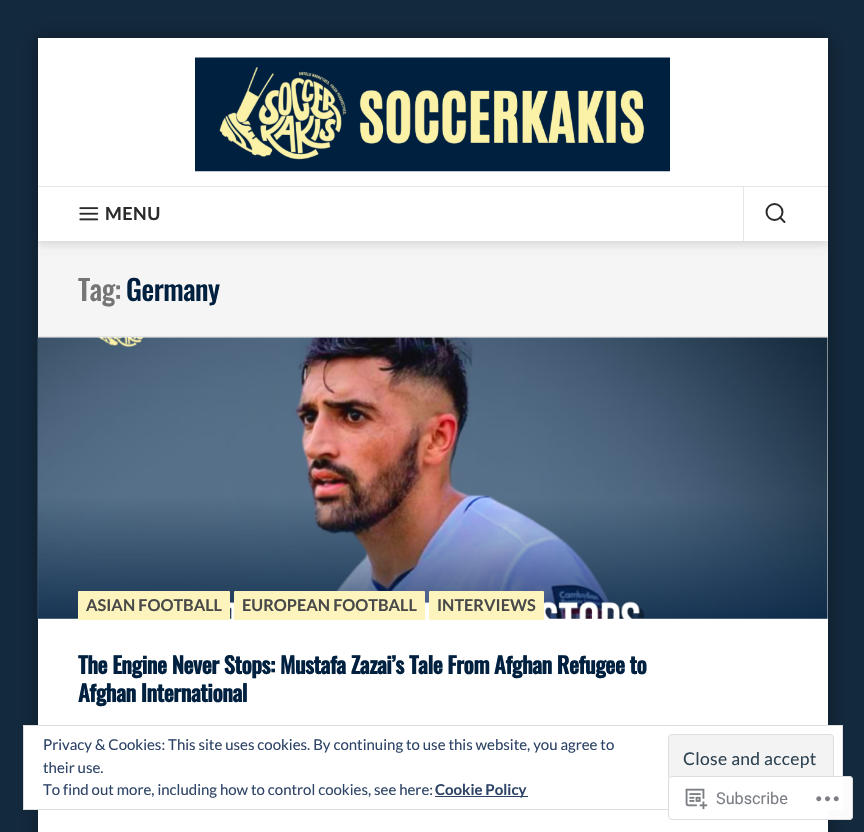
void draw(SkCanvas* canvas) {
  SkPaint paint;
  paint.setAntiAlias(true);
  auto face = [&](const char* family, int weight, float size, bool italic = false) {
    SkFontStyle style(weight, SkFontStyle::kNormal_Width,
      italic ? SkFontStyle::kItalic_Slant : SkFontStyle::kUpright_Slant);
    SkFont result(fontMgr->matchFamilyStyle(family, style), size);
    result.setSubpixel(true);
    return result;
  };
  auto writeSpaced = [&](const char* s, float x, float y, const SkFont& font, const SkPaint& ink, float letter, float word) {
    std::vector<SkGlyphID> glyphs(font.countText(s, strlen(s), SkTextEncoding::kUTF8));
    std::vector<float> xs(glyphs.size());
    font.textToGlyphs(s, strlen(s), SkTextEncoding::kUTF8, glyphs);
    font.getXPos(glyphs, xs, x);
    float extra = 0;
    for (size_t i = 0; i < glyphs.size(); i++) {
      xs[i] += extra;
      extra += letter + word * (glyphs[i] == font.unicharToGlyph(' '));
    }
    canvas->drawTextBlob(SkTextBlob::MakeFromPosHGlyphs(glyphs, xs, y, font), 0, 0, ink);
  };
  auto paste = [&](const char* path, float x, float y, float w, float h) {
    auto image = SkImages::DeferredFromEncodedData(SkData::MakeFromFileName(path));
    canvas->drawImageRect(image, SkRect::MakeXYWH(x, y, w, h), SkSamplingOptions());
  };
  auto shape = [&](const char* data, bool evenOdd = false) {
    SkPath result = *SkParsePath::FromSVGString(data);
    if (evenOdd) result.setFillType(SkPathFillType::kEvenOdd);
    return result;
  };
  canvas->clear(0xff13293d);
  paint.setColor(0x4d000000);
  paint.setMaskFilter(SkMaskFilter::MakeBlur(kNormal_SkBlurStyle, 9.5f));
  canvas->drawRect(SkRect::MakeXYWH(38, 38, 790, 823), paint);
  paint.setMaskFilter(nullptr);
  paint.setColor(0xffffffff);
  canvas->drawRect(SkRect::MakeXYWH(38, 337, 790, 495), paint);
  paint.setColor(0xfff5f5f5);
  canvas->drawRect(SkRect::MakeXYWH(38, 241, 790, 95), paint);
  paint.setColor(0x12000000);
  paint.setMaskFilter(SkMaskFilter::MakeBlur(kNormal_SkBlurStyle, 4.5f));
  canvas->drawRect(SkRect::MakeXYWH(38, 39, 790, 204), paint);
  paint.setMaskFilter(nullptr);
  paint.setColor(0x0d000000);
  paint.setMaskFilter(SkMaskFilter::MakeBlur(kNormal_SkBlurStyle, 3));
  canvas->drawRect(SkRect::MakeXYWH(38, 43, 790, 203), paint);
  paint.setMaskFilter(nullptr);
  paint.setColor(0xffffffff);
  canvas->drawRect(SkRect::MakeXYWH(38, 38, 790, 203), paint);
  paste("img/1.png", 195, 57, 475, 115);
  paint.setColor(0xffe5e5e5);
  canvas->drawRect(SkRect::MakeXYWH(38, 186, 790, 1), paint);
  paste("img/2.png", 79, 207, 20, 14);
  canvas->drawRect(SkRect::MakeXYWH(743, 186, 1, 55), paint);
  paint.setStroke(true);
  paint.setStrokeWidth(2);
  paint.setColor(0xff2b2b2b);
  canvas->drawCircle(774.5f, 212, 8, paint);
  paint.setStrokeCap(SkPaint::kRound_Cap);
  paint.setStrokeJoin(SkPaint::kRound_Join);
  canvas->drawPath(shape("M784.5 222L780 217.5"), paint);
  paint.setStroke(false);
  paint.setColor(0xffe5e5e5);
  canvas->drawRect(SkRect::MakeXYWH(38, 336, 790, 1), paint);
  paint.setColor(0xfff5f5f5);
  canvas->drawRect(SkRect::MakeXYWH(38, 338, 790, 281), paint);
  paste("img/3.png", 37, 337, 791, 282);
  paint.setColor(0xfffcf4bc);
  canvas->drawRoundRect(SkRect::MakeXYWH(78, 591, 152, 29), 1, 1, paint);
  canvas->drawRoundRect(SkRect::MakeXYWH(234, 591, 191, 29), 1, 1, paint);
  canvas->drawRoundRect(SkRect::MakeXYWH(429, 591, 115, 29), 1, 1, paint);
  paint.setColor(0xffffffff);
  canvas->drawRect(SkRect::MakeXYWH(23.5f, 725.5f, 819, 84), paint);
  paint.setStroke(true);
  paint.setStrokeWidth(1);
  paint.setStrokeCap(SkPaint::kButt_Cap);
  paint.setStrokeJoin(SkPaint::kMiter_Join);
  paint.setColor(0xffdedede);
  canvas->drawRect(SkRect::MakeXYWH(23.5f, 725.5f, 819, 84), paint);
  paint.setStroke(false);
  paint.setColor(0xfff3f3f3);
  canvas->drawRoundRect(SkRect::MakeXYWH(668.5f, 734.5f, 165, 48), 3.5f, 3.5f, paint);
  paint.setStroke(true);
  paint.setColor(0xffdedede);
  canvas->drawRoundRect(SkRect::MakeXYWH(668.5f, 734.5f, 165, 48), 3.5f, 3.5f, paint);
  paint.setStroke(false);
  paint.setColor(0xff2e4467);
  canvas->drawRect(SkRect::MakeXYWH(435, 796, 93, 1), paint);
  paint.setColor(0xfaffffff);
  canvas->drawRoundRect(SkRect::MakeXYWH(668, 776, 185, 44), 4, 4, paint);
  paint.setStroke(true);
  paint.setColor(0xfadcdcde);
  canvas->drawRoundRect(SkRect::MakeXYWH(668.5f, 776.5f, 184, 43), 3.5f, 3.5f, paint);
  paste("img/4.png", 685, 788, 23, 22);
  paste("img/5.png", 816, 796, 23, 6);
  auto f0 = face("Lato", 700, 18);
  paint.setStroke(false);
  paint.setColor(0xff2b2b2b);
  writeSpaced("MENU", 105, 220, f0, paint, 0.5f, 0);
  auto f1 = face("Oswald", 500, 28.5f);
  paint.setColor(0xff757575);
  writeSpaced("Tag:", 78, 301, f1, paint, -0.5f, 0);
  paint.setColor(0xff002040);
  writeSpaced("Germany", 126, 301, f1, paint, -0.5f, 0);
  auto f2 = face("Lato", 700, 16.25f);
  paint.setColor(0xff494949);
  {
    const struct { const char* s; float x, y; } items[] = {
      {"ASIAN FOOTBALL", 86, 611},
      {"EUROPEAN FOOTBALL", 242, 611},
      {"INTERVIEWS", 437, 611},
    };
    for (auto [s, x, y] : items) {
      canvas->drawString(s, x, y, f2, paint);
    }
  }
  auto f3 = face("Oswald", 700, 22.5f);
  paint.setColor(0xff002040);
  writeSpaced("The Engine Never Stops: Mustafa Zazai’s Tale From Afghan Refugee to", 78, 674, f3, paint, -0.45f, 0);
  writeSpaced("Afghan International", 78, 702, f3, paint, -0.45f, 0);
  auto f4 = face("Lato", 400, 15);
  paint.setColor(0xff2e4467);
  canvas->drawString("Privacy & Cookies: This site uses cookies. By continuing to use this website, you agree to", 43, 750, f4, paint);
  canvas->drawString("their use.", 43, 773, f4, paint);
  auto f5 = face("Lato", 400, 17.5f);
  paint.setColor(0xff2e4453);
  writeSpaced("Close and accept", 683, 765, f5, paint, 0.3f, 0);
  paint.setColor(0xff2e4467);
  canvas->drawString("To find out more, including how to control cookies, see here:", 43, 795, f4, paint);
  auto f6 = face("Lato", 700, 15);
  canvas->drawString("Cookie Policy", 435, 795, f6, paint);
  auto f7 = face("Roboto", 400, 16.25f);
  paint.setColor(0xff7b7f85);
  canvas->drawString("Subscribe", 716, 804, f7, paint);
}
